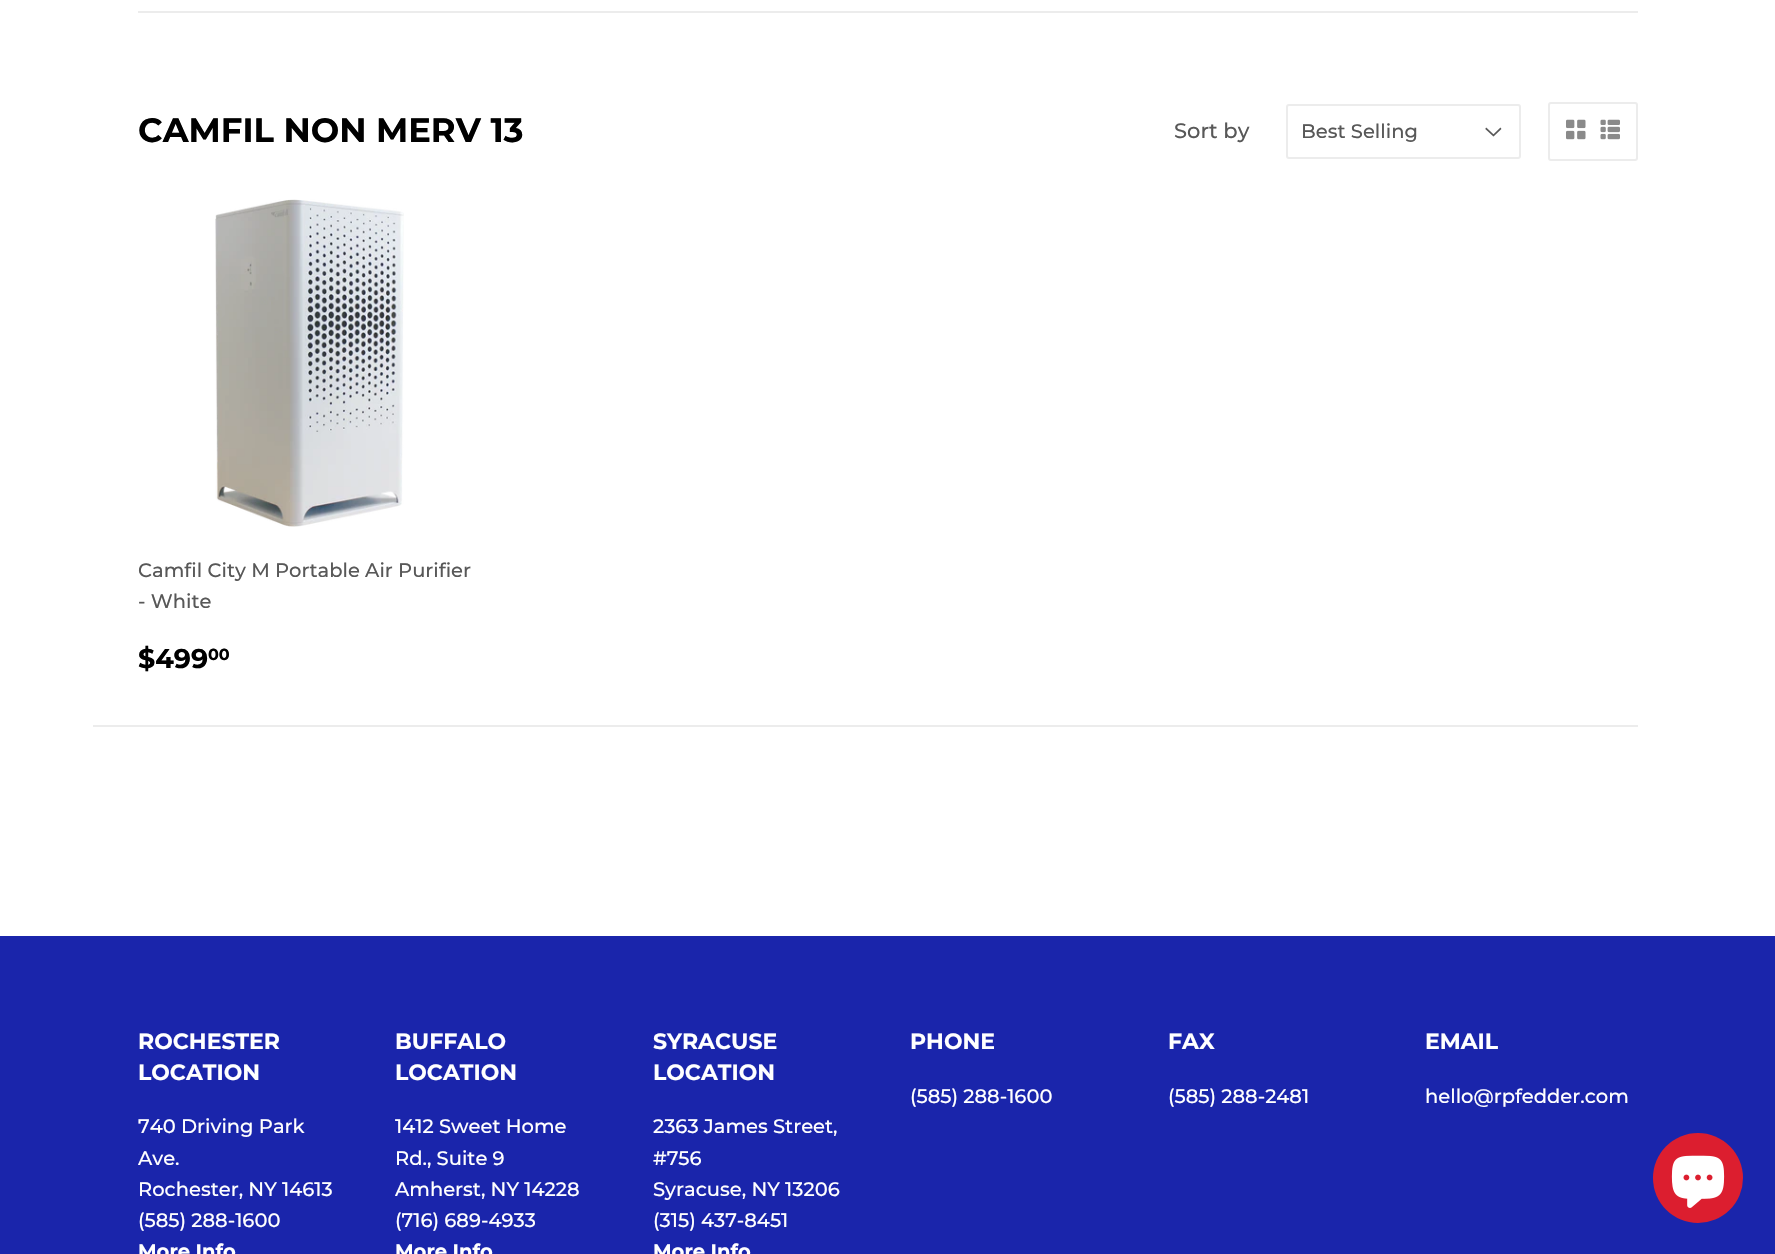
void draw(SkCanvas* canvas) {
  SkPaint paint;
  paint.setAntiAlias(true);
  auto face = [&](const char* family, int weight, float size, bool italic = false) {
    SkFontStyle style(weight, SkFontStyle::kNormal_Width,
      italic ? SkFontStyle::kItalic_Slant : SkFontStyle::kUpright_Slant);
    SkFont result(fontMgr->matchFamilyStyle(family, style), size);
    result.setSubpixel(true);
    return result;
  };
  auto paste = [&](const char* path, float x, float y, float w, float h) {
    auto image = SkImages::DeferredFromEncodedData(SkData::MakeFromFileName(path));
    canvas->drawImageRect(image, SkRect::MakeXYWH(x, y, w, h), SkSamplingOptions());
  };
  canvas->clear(0xffffffff);
  paint.setColor(0xffececec);
  canvas->drawRect(SkRect::MakeXYWH(138, 11, 1500, 2), paint);
  paste("img/1.png", 1485, 127, 17, 10);
  paint.setStroke(true);
  paint.setStrokeWidth(2);
  canvas->drawRoundRect(SkRect::MakeXYWH(1287, 105, 233, 53), 2, 2, paint);
  canvas->drawRoundRect(SkRect::MakeXYWH(1549, 103, 88, 57), 2, 2, paint);
  paste("img/2.png", 1566, 119, 20, 21);
  paste("img/3.png", 1600, 119, 20, 21);
  paste("img/4.png", 215, 199, 189, 328);
  paint.setStroke(false);
  canvas->drawRect(SkRect::MakeXYWH(93, 725, 1545, 2), paint);
  paint.setColor(0xff1a25ab);
  canvas->drawRect(SkRect::MakeXYWH(0, 936, 1775, 318), paint);
  paint.setColor(0xffdc1e2f);
  canvas->drawCircle(1698, 1178, 45, paint);
  paste("img/5.png", 1671, 1155, 54, 53);
  auto f0 = face("Montserrat", 700, 33.75f);
  paint.setColor(0xff000000);
  canvas->drawString("CAMFIL NON MERV 13", 138, 142, f0, paint);
  auto f1 = face("Montserrat", 500, 21);
  paint.setColor(0xff585858);
  canvas->drawString("Sort by", 1174, 138, f1, paint);
  auto f2 = face("Montserrat", 500, 19.5f);
  {
    const struct { const char* s; float x, y; } items[] = {
      {"Best Selling", 1301, 138},
      {"Camfil City M Portable Air Purifier", 138, 577},
      {"- White", 138, 608},
    };
    for (auto [s, x, y] : items) {
      canvas->drawString(s, x, y, f2, paint);
    }
  }
  auto f3 = face("Montserrat", 700, 27);
  paint.setColor(0xff000000);
  canvas->drawString("$499", 138, 668, f3, paint);
  auto f4 = face("Montserrat", 700, 16);
  canvas->drawString("00", 208, 660, f4, paint);
  auto f5 = face("Montserrat", 700, 22);
  paint.setColor(0xffffffff);
  canvas->drawString("ROCHESTER", 138, 1049, f5, paint);
  canvas->drawString("LOCATION", 138, 1080, f5, paint);
  {
    const struct { const char* s; float x, y; } items[] = {
      {"740 Driving Park", 138, 1133},
      {"Ave.", 138, 1165},
      {"Rochester, NY 14613", 138, 1196},
      {"(585) 288-1600", 138, 1227},
    };
    for (auto [s, x, y] : items) {
      canvas->drawString(s, x, y, f2, paint);
    }
  }
  auto f6 = face("Montserrat", 700, 19.5f);
  canvas->drawString("More Info", 138, 1258, f6, paint);
  canvas->drawString("BUFFALO", 395, 1049, f5, paint);
  canvas->drawString("LOCATION", 395, 1080, f5, paint);
  {
    const struct { const char* s; float x, y; } items[] = {
      {"1412 Sweet Home", 395, 1133},
      {"Rd., Suite 9", 395, 1165},
      {"Amherst, NY 14228", 395, 1196},
      {"(716) 689-4933", 395, 1227},
    };
    for (auto [s, x, y] : items) {
      canvas->drawString(s, x, y, f2, paint);
    }
  }
  canvas->drawString("More Info", 395, 1258, f6, paint);
  canvas->drawString("SYRACUSE", 653, 1049, f5, paint);
  canvas->drawString("LOCATION", 653, 1080, f5, paint);
  {
    const struct { const char* s; float x, y; } items[] = {
      {"2363 James Street,", 653, 1133},
      {"#756", 653, 1165},
      {"Syracuse, NY 13206", 653, 1196},
      {"(315) 437-8451", 653, 1227},
    };
    for (auto [s, x, y] : items) {
      canvas->drawString(s, x, y, f2, paint);
    }
  }
  canvas->drawString("More Info", 653, 1258, f6, paint);
  canvas->drawString("PHONE", 910, 1049, f5, paint);
  canvas->drawString("(585) 288-1600", 910, 1103, f2, paint);
  canvas->drawString("FAX", 1168, 1049, f5, paint);
  canvas->drawString("(585) 288-2481", 1168, 1103, f2, paint);
  canvas->drawString("EMAIL", 1425, 1049, f5, paint);
  canvas->drawString("hello@rpfedder.com", 1425, 1103, f2, paint);
}
